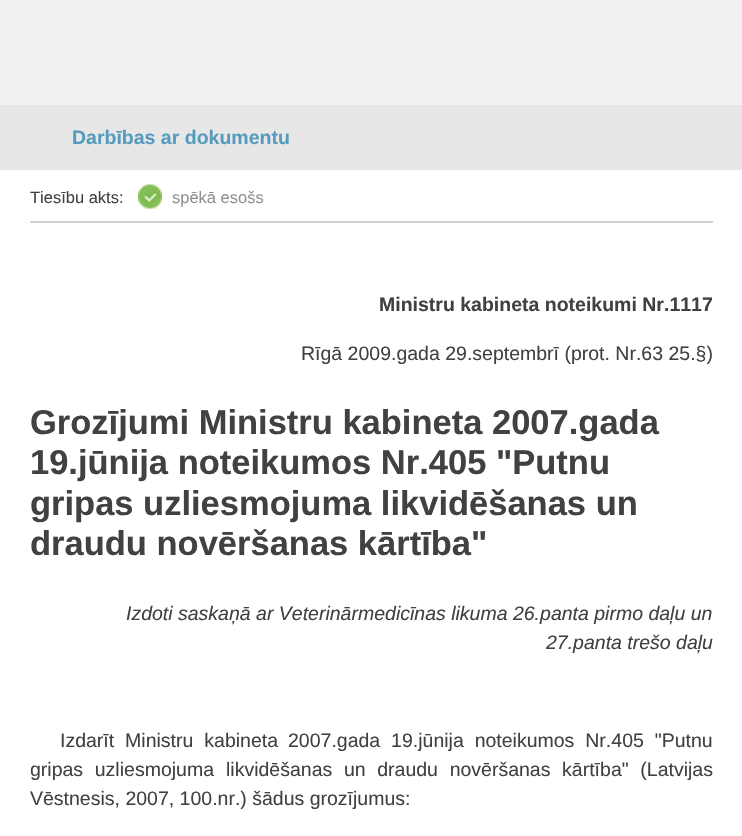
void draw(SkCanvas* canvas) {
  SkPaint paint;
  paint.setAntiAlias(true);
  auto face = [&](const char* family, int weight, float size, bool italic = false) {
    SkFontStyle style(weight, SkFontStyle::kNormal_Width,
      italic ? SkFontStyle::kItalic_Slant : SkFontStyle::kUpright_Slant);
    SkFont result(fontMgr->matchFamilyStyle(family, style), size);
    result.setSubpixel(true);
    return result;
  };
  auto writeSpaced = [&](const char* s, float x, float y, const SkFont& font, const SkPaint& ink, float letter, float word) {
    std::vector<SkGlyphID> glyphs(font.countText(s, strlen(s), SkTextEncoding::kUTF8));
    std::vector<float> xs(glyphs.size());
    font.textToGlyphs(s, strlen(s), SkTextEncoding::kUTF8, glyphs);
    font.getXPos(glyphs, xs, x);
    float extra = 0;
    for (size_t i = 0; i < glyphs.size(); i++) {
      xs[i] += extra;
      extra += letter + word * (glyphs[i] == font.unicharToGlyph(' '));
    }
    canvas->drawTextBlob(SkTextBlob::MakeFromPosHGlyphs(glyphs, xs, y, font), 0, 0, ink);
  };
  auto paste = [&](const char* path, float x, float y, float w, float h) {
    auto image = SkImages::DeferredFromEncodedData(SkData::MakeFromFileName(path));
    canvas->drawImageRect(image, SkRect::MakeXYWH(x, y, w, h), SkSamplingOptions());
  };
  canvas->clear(0xffffffff);
  {
    const struct { float x, y, w, h; SkColor color; } items[] = {
      {0, 0, 742, 105, 0xfff1f1f1},
      {0, 105, 742, 2, 0xffe5e5e5},
      {0, 107, 742, 63, 0xffe7e7e7},
      {30, 221, 683, 2, 0xffcfd1d3},
    };
    for (auto [x, y, w, h, color] : items) {
      paint.setColor(color);
      canvas->drawRect(SkRect::MakeXYWH(x, y, w, h), paint);
    }
  }
  paste("img/1.png", 138, 184, 24, 25);
  auto f0 = face("Liberation Sans", 700, 19.5f);
  paint.setColor(0xff559bbd);
  canvas->drawString("Darbības ar dokumentu", 72, 144, f0, paint);
  auto f1 = face("Liberation Sans", 400, 16.5f);
  paint.setColor(0xff414142);
  canvas->drawString("Tiesību akts:", 30, 203, f1, paint);
  paint.setColor(0xff909192);
  canvas->drawString("spēkā esošs", 172, 203, f1, paint);
  paint.setColor(0xff414142);
  canvas->drawString("Ministru kabineta noteikumi Nr.1117", 379, 311, f0, paint);
  auto f2 = face("Liberation Sans", 400, 19.5f);
  canvas->drawString("Rīgā 2009.gada 29.septembrī (prot. Nr.63 25.§)", 301, 360, f2, paint);
  auto f3 = face("Liberation Sans", 700, 34.5f);
  {
    const struct { const char* s; float x, y; } items[] = {
      {"Grozījumi Ministru kabineta 2007.gada", 30, 434},
      {"19.jūnija noteikumos Nr.405 \"Putnu", 30, 474},
      {"gripas uzliesmojuma likvidēšanas un", 30, 515},
      {"draudu novēršanas kārtība\"", 30, 555},
    };
    for (auto [s, x, y] : items) {
      canvas->drawString(s, x, y, f3, paint);
    }
  }
  auto f4 = face("Liberation Sans", 400, 19.5f, true);
  canvas->drawString("Izdoti saskaņā ar Veterinārmedicīnas likuma 26.panta pirmo daļu un", 126, 620, f4, paint);
  canvas->drawString("27.panta trešo daļu", 546, 649, f4, paint);
  writeSpaced("Izdarīt Ministru kabineta", 60, 747, f2, paint, 0, 5.5f);
  writeSpaced("2007.gada 19.jūnija noteikumos Nr.405 \"Putnu", 288, 747, f2, paint, 0, 5.5f);
  writeSpaced("gripas uzliesmojuma", 30, 776, f2, paint, 0, 6.25f);
  writeSpaced("likvidēšanas un draudu novēršanas kārtība\" (Latvijas", 226, 776, f2, paint, 0, 6.25f);
  canvas->drawString("Vēstnesis, 2007, 100.nr.) šādus grozījumus:", 30, 805, f2, paint);
}
